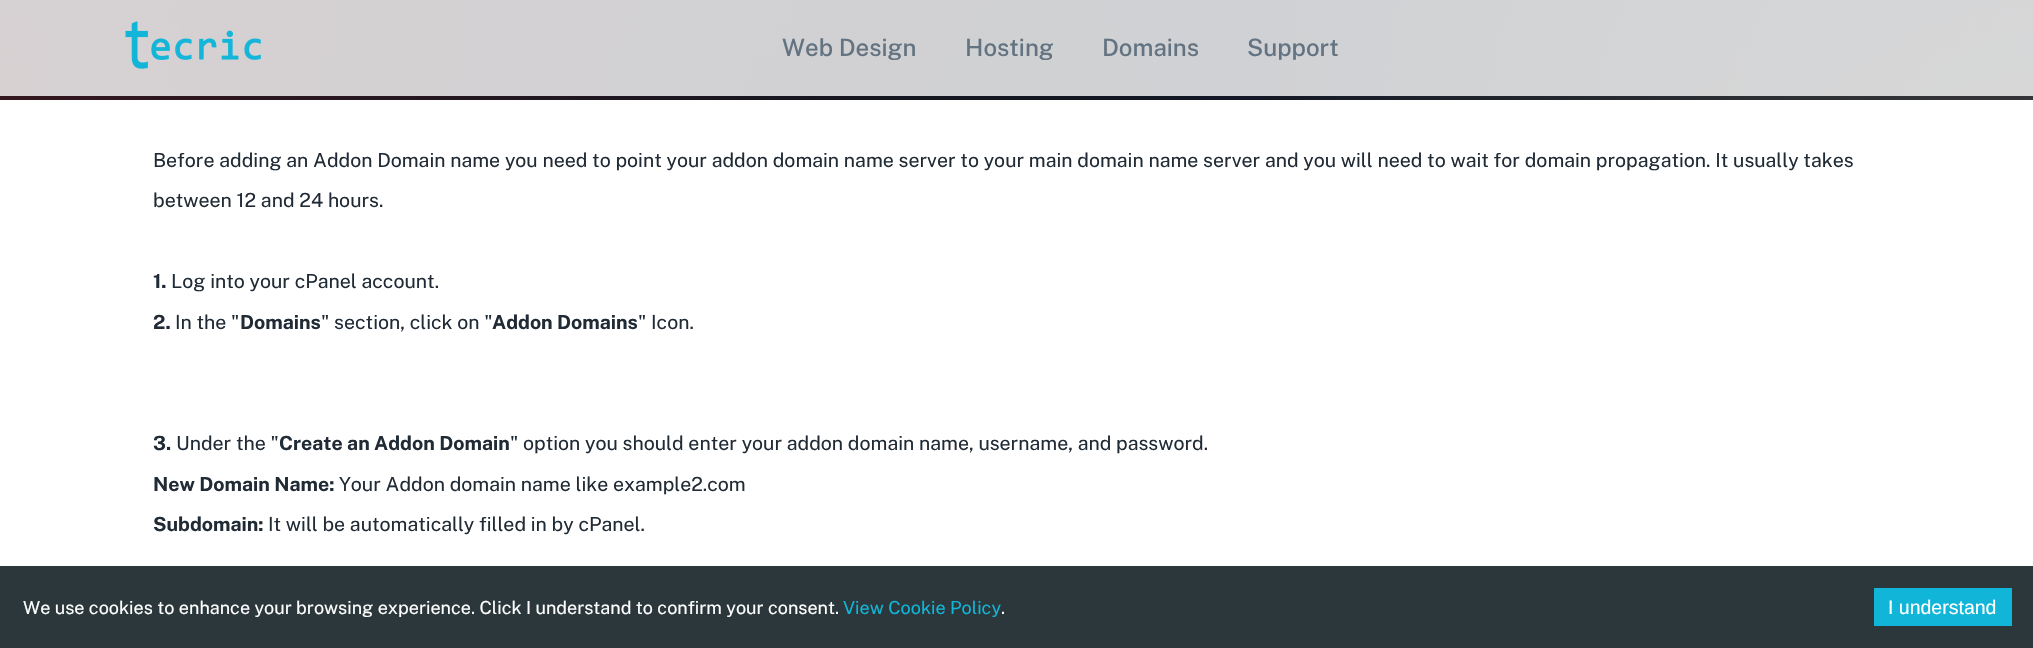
void draw(SkCanvas* canvas) {
  SkPaint paint;
  paint.setAntiAlias(true);
  auto face = [&](const char* family, int weight, float size, bool italic = false) {
    SkFontStyle style(weight, SkFontStyle::kNormal_Width,
      italic ? SkFontStyle::kItalic_Slant : SkFontStyle::kUpright_Slant);
    SkFont result(fontMgr->matchFamilyStyle(family, style), size);
    result.setSubpixel(true);
    return result;
  };
  auto paste = [&](const char* path, float x, float y, float w, float h) {
    auto image = SkImages::DeferredFromEncodedData(SkData::MakeFromFileName(path));
    canvas->drawImageRect(image, SkRect::MakeXYWH(x, y, w, h), SkSamplingOptions());
  };
  canvas->clear(0xffffffff);
  paste("img/2.png", 0, 0, 2033, 100);
  paint.setColor(0xccffffff);
  canvas->drawRect(SkRect::MakeXYWH(0, 0, 2033, 96), paint);
  paste("img/1.png", 125, 21, 136, 48);
  paint.setColor(0xff2b373b);
  canvas->drawRect(SkRect::MakeXYWH(0, 566, 2033, 82), paint);
  paint.setColor(0xff11b5d8);
  canvas->drawRect(SkRect::MakeXYWH(1874, 588, 138, 38), paint);
  auto f0 = face("Public Sans", 500, 24);
  paint.setColor(0xff637381);
  {
    const struct { const char* s; float x, y; } items[] = {
      {"Web Design", 782, 56},
      {"Hosting", 965, 56},
      {"Domains", 1102, 56},
      {"Support", 1247, 56},
    };
    for (auto [s, x, y] : items) {
      canvas->drawString(s, x, y, f0, paint);
    }
  }
  auto f1 = face("Public Sans", 400, 19.5f);
  paint.setColor(0xff212b36);
  canvas->drawString("Before adding an Addon Domain name you need to point your addon domain name server to your main domain name server and you will need to wait for domain propagation. It usually takes", 153, 167, f1, paint);
  canvas->drawString("between 12 and 24 hours.", 153, 207, f1, paint);
  auto f2 = face("Public Sans", 700, 19.5f);
  canvas->drawString("1.", 153, 288, f2, paint);
  canvas->drawString("Log into your cPanel account.", 171, 288, f1, paint);
  canvas->drawString("2.", 153, 329, f2, paint);
  canvas->drawString("In the \"", 175, 329, f1, paint);
  canvas->drawString("Domains", 240, 329, f2, paint);
  canvas->drawString("\" section, click on \"", 321, 329, f1, paint);
  canvas->drawString("Addon Domains", 492, 329, f2, paint);
  canvas->drawString("\" Icon.", 638, 329, f1, paint);
  canvas->drawString("3.", 153, 450, f2, paint);
  canvas->drawString("Under the \"", 176, 450, f1, paint);
  canvas->drawString("Create an Addon Domain", 279, 450, f2, paint);
  canvas->drawString("\" option you should enter your addon domain name, username, and password.", 510, 450, f1, paint);
  canvas->drawString("New Domain Name:", 153, 491, f2, paint);
  canvas->drawString("Your Addon domain name like example2.com", 339, 491, f1, paint);
  canvas->drawString("Subdomain:", 153, 531, f2, paint);
  canvas->drawString("It will be automatically filled in by cPanel.", 268, 531, f1, paint);
  auto f3 = face("Public Sans", 400, 18);
  paint.setColor(0xffffffff);
  canvas->drawString("We use cookies to enhance your browsing experience. Click I understand to confirm your consent.", 23, 614, f3, paint);
  paint.setColor(0xff11b5d8);
  canvas->drawString("View Cookie Policy", 843, 614, f3, paint);
  paint.setColor(0xffffffff);
  canvas->drawString(".", 1001, 614, f3, paint);
  auto f4 = face("Liberation Sans", 400, 19.5f);
  canvas->drawString("I understand", 1888, 614, f4, paint);
}
